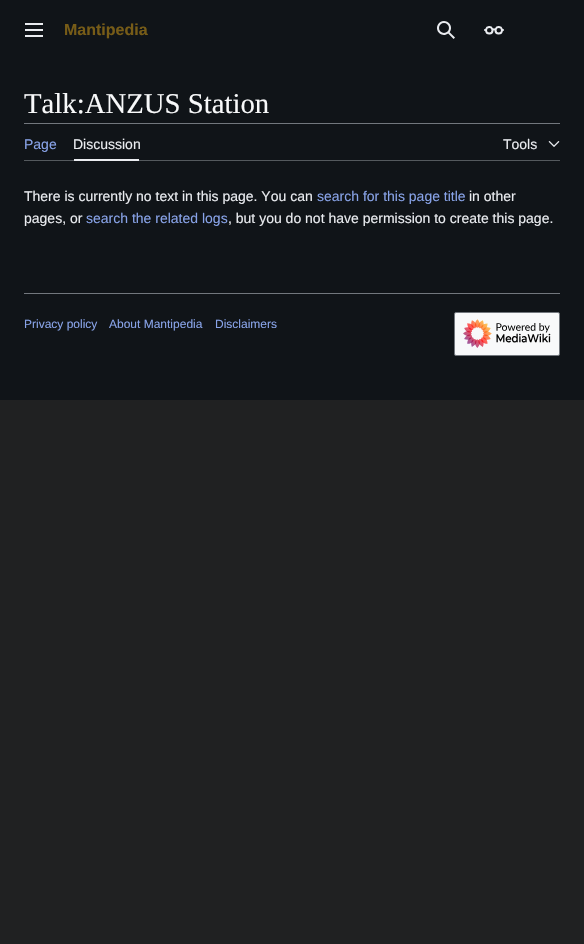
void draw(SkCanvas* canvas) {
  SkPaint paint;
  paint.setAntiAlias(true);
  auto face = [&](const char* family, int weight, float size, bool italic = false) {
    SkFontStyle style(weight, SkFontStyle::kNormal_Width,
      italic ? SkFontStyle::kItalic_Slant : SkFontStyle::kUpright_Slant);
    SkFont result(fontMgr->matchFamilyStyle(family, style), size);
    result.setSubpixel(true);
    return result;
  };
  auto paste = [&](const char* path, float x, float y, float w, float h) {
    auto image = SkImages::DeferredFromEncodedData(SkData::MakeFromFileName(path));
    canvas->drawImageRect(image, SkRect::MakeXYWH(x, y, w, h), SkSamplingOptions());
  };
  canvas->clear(0xff202122);
  paint.setColor(0xff101418);
  canvas->drawRect(SkRect::MakeXYWH(0, 0, 584, 400), paint);
  paste("img/1.png", 25, 23, 18, 14);
  paste("img/2.png", 437, 21, 18, 18);
  paste("img/3.png", 484, 26, 20, 9);
  {
    const struct { float x, y, w, h; SkColor color; } items[] = {
      {24, 123, 536, 1, 0xff72777d},
      {24, 160, 536, 1, 0xff54595d},
      {74, 159, 65, 2, 0xffeaecf0},
    };
    for (auto [x, y, w, h, color] : items) {
      paint.setColor(color);
      canvas->drawRect(SkRect::MakeXYWH(x, y, w, h), paint);
    }
  }
  paste("img/4.png", 548, 141, 12, 6);
  paint.setColor(0xff72777d);
  canvas->drawRect(SkRect::MakeXYWH(24, 293, 536, 1), paint);
  paint.setColor(0xfff8f9fa);
  canvas->drawRoundRect(SkRect::MakeXYWH(454.5f, 312.5f, 105, 43), 1.5f, 1.5f, paint);
  paint.setStroke(true);
  paint.setStrokeWidth(1);
  paint.setColor(0xff72777d);
  canvas->drawRoundRect(SkRect::MakeXYWH(454.5f, 312.5f, 105, 43), 1.5f, 1.5f, paint);
  paste("img/5.png", 463, 319, 88, 29);
  auto f0 = face("Liberation Sans", 700, 16);
  paint.setStroke(false);
  paint.setColor(0xff775c17);
  canvas->drawString("Mantipedia", 64, 35, f0, paint);
  auto f1 = face("Liberation Serif", 400, 28.75f);
  paint.setColor(0xfff8f9fa);
  canvas->drawString("Talk:ANZUS Station", 24, 113, f1, paint);
  auto f2 = face("Liberation Sans", 400, 14);
  paint.setColor(0xff88a3e8);
  canvas->drawString("Page", 24, 149, f2, paint);
  paint.setColor(0xffeaecf0);
  {
    const struct { const char* s; float x, y; } items[] = {
      {"Discussion", 73, 149},
      {"Tools", 503, 149},
      {"There is currently no text in this page. You can", 24, 201},
    };
    for (auto [s, x, y] : items) {
      canvas->drawString(s, x, y, f2, paint);
    }
  }
  paint.setColor(0xff88a3e8);
  canvas->drawString("search for this page title", 317, 201, f2, paint);
  paint.setColor(0xffeaecf0);
  canvas->drawString("in other", 469, 201, f2, paint);
  canvas->drawString("pages, or", 24, 223, f2, paint);
  paint.setColor(0xff88a3e8);
  canvas->drawString("search the related logs", 86, 223, f2, paint);
  paint.setColor(0xffeaecf0);
  canvas->drawString(", but you do not have permission to create this page.", 228, 223, f2, paint);
  auto f3 = face("Liberation Sans", 400, 12);
  paint.setColor(0xff88a3e8);
  {
    const struct { const char* s; float x, y; } items[] = {
      {"Privacy policy", 24, 328},
      {"About Mantipedia", 109, 328},
      {"Disclaimers", 215, 328},
    };
    for (auto [s, x, y] : items) {
      canvas->drawString(s, x, y, f3, paint);
    }
  }
}
